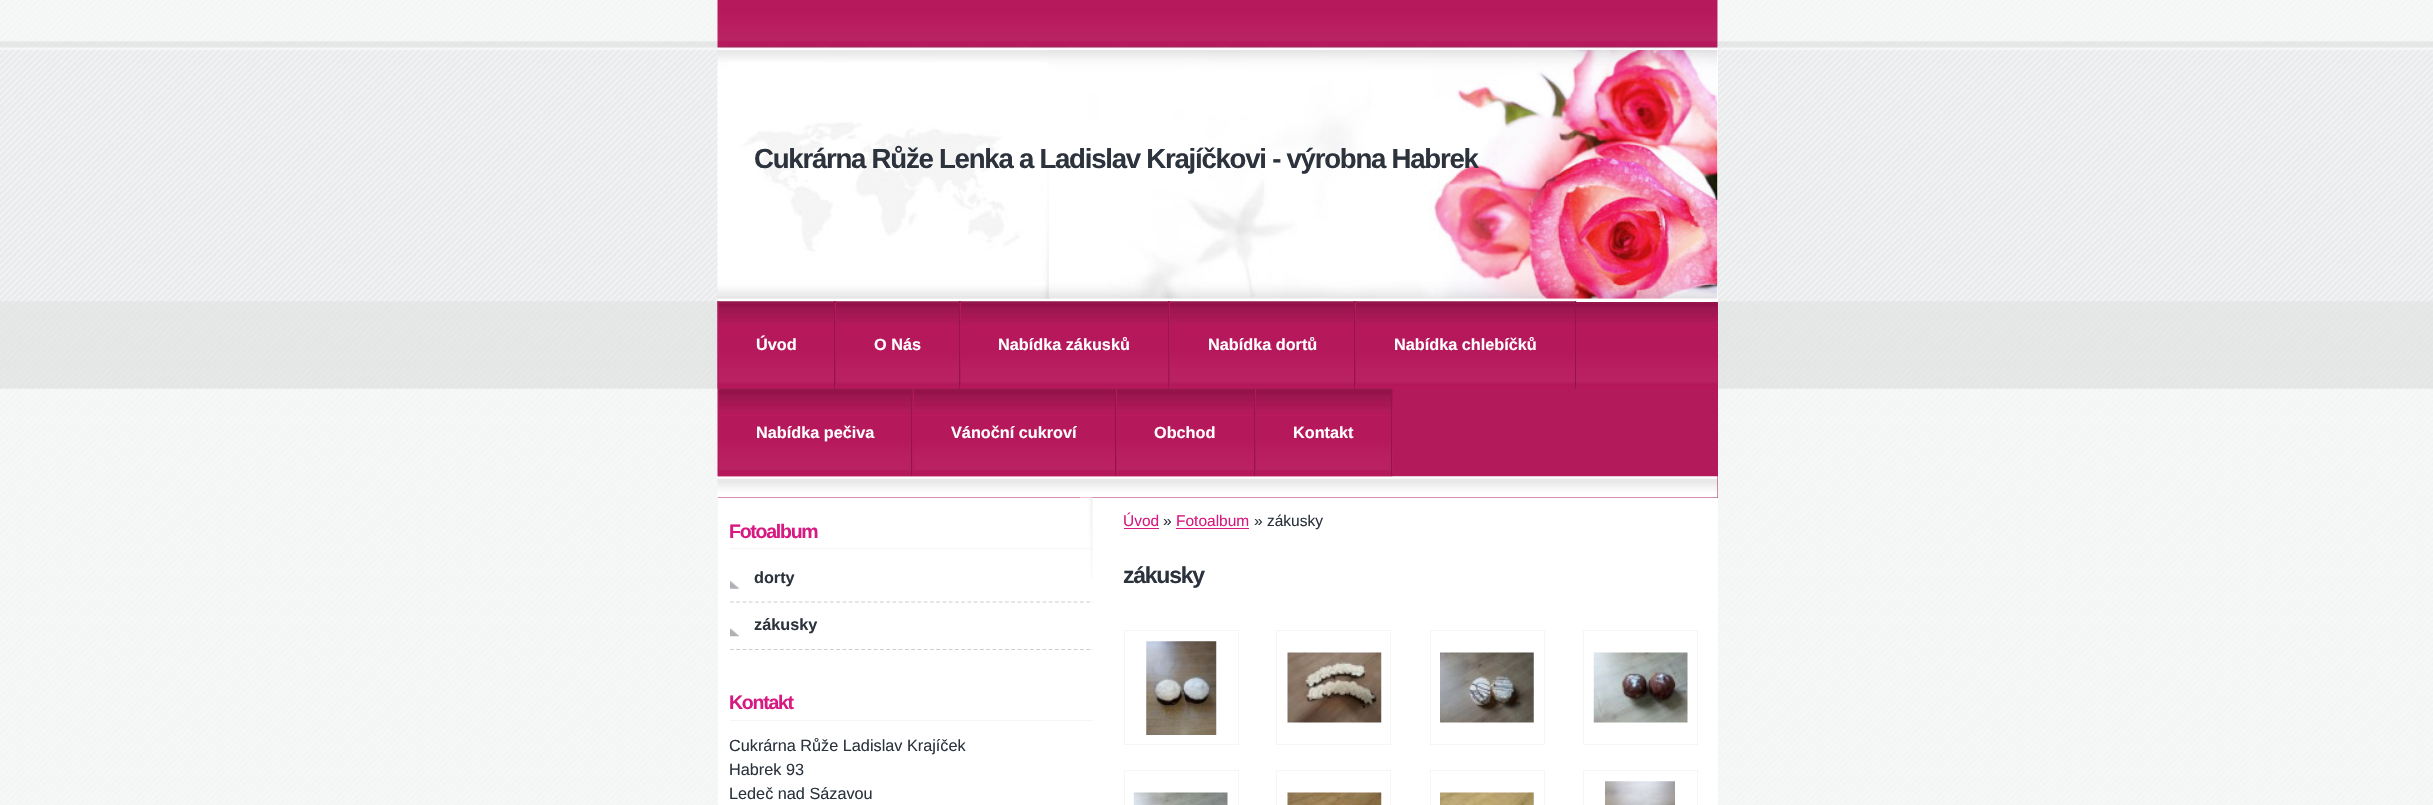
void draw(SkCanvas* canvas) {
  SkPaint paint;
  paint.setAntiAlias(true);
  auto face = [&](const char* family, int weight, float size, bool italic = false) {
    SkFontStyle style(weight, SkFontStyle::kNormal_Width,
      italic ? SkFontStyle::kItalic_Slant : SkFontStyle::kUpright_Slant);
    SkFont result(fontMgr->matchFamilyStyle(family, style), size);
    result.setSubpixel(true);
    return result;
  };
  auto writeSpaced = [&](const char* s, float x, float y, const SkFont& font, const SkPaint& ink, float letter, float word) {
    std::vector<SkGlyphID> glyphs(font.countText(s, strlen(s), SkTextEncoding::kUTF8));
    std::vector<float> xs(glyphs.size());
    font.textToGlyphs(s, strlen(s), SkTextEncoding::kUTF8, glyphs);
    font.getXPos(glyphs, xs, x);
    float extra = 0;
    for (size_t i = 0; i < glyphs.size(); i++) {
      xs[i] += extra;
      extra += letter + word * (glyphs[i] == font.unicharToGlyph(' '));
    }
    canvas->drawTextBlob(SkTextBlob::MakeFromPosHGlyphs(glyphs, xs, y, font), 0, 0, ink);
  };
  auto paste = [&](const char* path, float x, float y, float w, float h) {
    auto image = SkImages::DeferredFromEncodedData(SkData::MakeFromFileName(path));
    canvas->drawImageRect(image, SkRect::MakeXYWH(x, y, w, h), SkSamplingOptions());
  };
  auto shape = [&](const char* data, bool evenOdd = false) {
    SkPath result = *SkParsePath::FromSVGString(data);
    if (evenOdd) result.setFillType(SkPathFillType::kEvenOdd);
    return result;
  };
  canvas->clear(0xffffffff);
  paste("img/1.png", 0, 388, 2433, 417);
  paste("img/2.png", 0, 0, 2433, 389);
  paint.setColor(0xffffffff);
  canvas->drawRect(SkRect::MakeXYWH(718, 0, 1000, 805), paint);
  paste("img/3.png", 717, 0, 1001, 50);
  paste("img/4.png", 717, 50, 333, 249);
  paste("img/5.png", 1048, 50, 670, 249);
  paint.setColor(0xffb31a5b);
  canvas->drawRect(SkRect::MakeXYWH(718, 302, 1000, 196), paint);
  paste("img/6.png", 717, 301, 1001, 88);
  paint.setColor(0xffffffff);
  canvas->drawRect(SkRect::MakeXYWH(718, 301, 1000, 1), paint);
  paste("img/7.png", 717, 476, 1001, 22);
  paste("img/8.png", 717, 301, 117, 88);
  {
    const struct { float x, y, w, h; SkColor color; } items[] = {
      {834, 301, 1, 88, 0xff95144c},
      {718, 301, 1, 88, 0xffb31a5b},
      {835, 301, 125, 1, 0xffad5377},
      {959, 301, 1, 88, 0xff95144c},
      {835, 301, 1, 88, 0xffb31a5b},
    };
    for (auto [x, y, w, h, color] : items) {
      paint.setColor(color);
      canvas->drawRect(SkRect::MakeXYWH(x, y, w, h), paint);
    }
  }
  paste("img/9.png", 961, 301, 207, 1);
  paint.setColor(0xff95144c);
  canvas->drawRect(SkRect::MakeXYWH(1168, 301, 1, 88), paint);
  paint.setColor(0xffb31a5b);
  canvas->drawRect(SkRect::MakeXYWH(960, 301, 1, 88), paint);
  paste("img/10.png", 1168, 301, 186, 88);
  paint.setColor(0xff95144c);
  canvas->drawRect(SkRect::MakeXYWH(1354, 301, 1, 88), paint);
  paint.setColor(0xffb31a5b);
  canvas->drawRect(SkRect::MakeXYWH(1169, 301, 1, 88), paint);
  paste("img/11.png", 1356, 301, 221, 1);
  paint.setColor(0xff95144c);
  canvas->drawRect(SkRect::MakeXYWH(1575, 301, 1, 88), paint);
  paint.setColor(0xffb31a5b);
  canvas->drawRect(SkRect::MakeXYWH(1355, 301, 1, 88), paint);
  paste("img/12.png", 717, 388, 196, 89);
  paint.setColor(0xff95144c);
  canvas->drawRect(SkRect::MakeXYWH(911, 389, 1, 87), paint);
  paint.setColor(0xffb31a5b);
  canvas->drawRect(SkRect::MakeXYWH(718, 389, 1, 87), paint);
  paste("img/13.png", 912, 388, 205, 89);
  paint.setColor(0xff95144c);
  canvas->drawRect(SkRect::MakeXYWH(1115, 389, 1, 87), paint);
  paint.setColor(0xffb31a5b);
  canvas->drawRect(SkRect::MakeXYWH(913, 389, 1, 87), paint);
  paste("img/14.png", 1116, 388, 139, 89);
  paint.setColor(0xff95144c);
  canvas->drawRect(SkRect::MakeXYWH(1254, 389, 1, 87), paint);
  paint.setColor(0xffb31a5b);
  canvas->drawRect(SkRect::MakeXYWH(1116, 389, 1, 87), paint);
  paste("img/15.png", 1255, 388, 138, 89);
  paint.setColor(0xff95144c);
  canvas->drawRect(SkRect::MakeXYWH(1391, 389, 1, 87), paint);
  paint.setColor(0xffb31a5b);
  canvas->drawRect(SkRect::MakeXYWH(1255, 389, 1, 87), paint);
  paste("img/16.png", 1080, 497, 13, 81);
  paint.setColor(0xfff5f5f5);
  canvas->drawRect(SkRect::MakeXYWH(730, 548, 363, 1), paint);
  canvas->save();
  canvas->clipRect(SkRect::MakeXYWH(730, 555, 363, 95));
  paint.setStroke(true);
  paint.setStrokeWidth(1.2f);
  paint.setColor(0xffcdcdcd);
  paint.setPathEffect(SkDashPathEffect::Make({{3.75f, 2.5f}}, 0));
  canvas->drawPath(shape("M730 602H1102.5"), paint);
  paint.setPathEffect(nullptr);
  canvas->restore();
  paste("img/17.png", 730, 581, 9, 8);
  canvas->save();
  canvas->clipRect(SkRect::MakeXYWH(730, 555, 363, 95));
  paint.setPathEffect(SkDashPathEffect::Make({{3.75f, 2.5f}}, 0));
  canvas->drawPath(shape("M730 649.5H1102.5"), paint);
  paint.setPathEffect(nullptr);
  canvas->restore();
  paste("img/18.png", 730, 628, 9, 9);
  paint.setStroke(false);
  {
    const struct { float x, y, w, h; SkColor color; } items[] = {
      {730, 720, 363, 1, 0xfff5f5f5},
      {1124, 528, 35, 1, 0xffd71a81},
      {1176, 528, 73, 1, 0xffd71a81},
    };
    for (auto [x, y, w, h, color] : items) {
      paint.setColor(color);
      canvas->drawRect(SkRect::MakeXYWH(x, y, w, h), paint);
    }
  }
  paint.setStroke(true);
  paint.setStrokeWidth(1);
  paint.setColor(0xfff4f6f5);
  canvas->drawRect(SkRect::MakeXYWH(1124.5f, 630.5f, 114, 114), paint);
  paste("img/19.png", 1146, 641, 71, 94);
  canvas->drawRect(SkRect::MakeXYWH(1276.5f, 630.5f, 114, 114), paint);
  paste("img/20.png", 1287, 652, 95, 71);
  canvas->drawRect(SkRect::MakeXYWH(1430.5f, 630.5f, 114, 114), paint);
  paste("img/21.png", 1440, 652, 94, 71);
  canvas->drawRect(SkRect::MakeXYWH(1583.5f, 630.5f, 114, 114), paint);
  paste("img/22.png", 1593, 652, 95, 71);
  canvas->drawRect(SkRect::MakeXYWH(1124.5f, 770.5f, 114, 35), paint);
  paste("img/23.png", 1133, 792, 95, 13);
  canvas->drawRect(SkRect::MakeXYWH(1276.5f, 770.5f, 114, 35), paint);
  paste("img/24.png", 1287, 792, 95, 13);
  canvas->drawRect(SkRect::MakeXYWH(1430.5f, 770.5f, 114, 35), paint);
  paste("img/25.png", 1440, 792, 94, 13);
  canvas->drawRect(SkRect::MakeXYWH(1583.5f, 770.5f, 114, 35), paint);
  paste("img/26.png", 1605, 781, 70, 24);
  auto f0 = face("Liberation Sans", 700, 27.6f);
  paint.setStroke(false);
  paint.setColor(0xff2c333d);
  writeSpaced("Cukrárna Růže Lenka a Ladislav Krajíčkovi - výrobna Habrek", 754, 168, f0, paint, -1.25f, 0);
  auto f1 = face("Liberation Sans", 700, 16.25f);
  paint.setColor(0xffffffff);
  {
    const struct { const char* s; float x, y; } items[] = {
      {"Úvod", 756, 350},
      {"O Nás", 874, 350},
      {"Nabídka zákusků", 998, 350},
      {"Nabídka dortů", 1208, 350},
      {"Nabídka chlebíčků", 1394, 350},
      {"Nabídka pečiva", 756, 438},
      {"Vánoční cukroví", 951, 438},
      {"Obchod", 1154, 438},
      {"Kontakt", 1293, 438},
    };
    for (auto [s, x, y] : items) {
      canvas->drawString(s, x, y, f1, paint);
    }
  }
  auto f2 = face("Liberation Sans", 700, 19.5f);
  paint.setColor(0xffd71a81);
  writeSpaced("Fotoalbum", 729, 538, f2, paint, -1.25f, 0);
  paint.setColor(0xff2c333d);
  canvas->drawString("dorty", 754, 583, f1, paint);
  canvas->drawString("zákusky", 754, 630, f1, paint);
  paint.setColor(0xffd71a81);
  writeSpaced("Kontakt", 729, 709, f2, paint, -1.25f, 0);
  auto f3 = face("Liberation Sans", 400, 16.25f);
  paint.setColor(0xff2c333d);
  {
    const struct { const char* s; float x, y; } items[] = {
      {"Cukrárna Růže Ladislav Krajíček", 729, 751},
      {"Habrek 93", 729, 775},
      {"Ledeč nad Sázavou", 729, 799},
    };
    for (auto [s, x, y] : items) {
      canvas->drawString(s, x, y, f3, paint);
    }
  }
  auto f4 = face("Liberation Sans", 400, 15.5f);
  paint.setColor(0xffd71a81);
  canvas->drawString("Úvod", 1123, 526, f4, paint);
  paint.setColor(0xff2c333d);
  canvas->drawString("»", 1163, 526, f4, paint);
  paint.setColor(0xffd71a81);
  canvas->drawString("Fotoalbum", 1176, 526, f4, paint);
  paint.setColor(0xff2c333d);
  canvas->drawString("» zákusky", 1254, 526, f4, paint);
  auto f5 = face("Liberation Sans", 700, 23);
  writeSpaced("zákusky", 1123, 583, f5, paint, -1.25f, 0);
}
